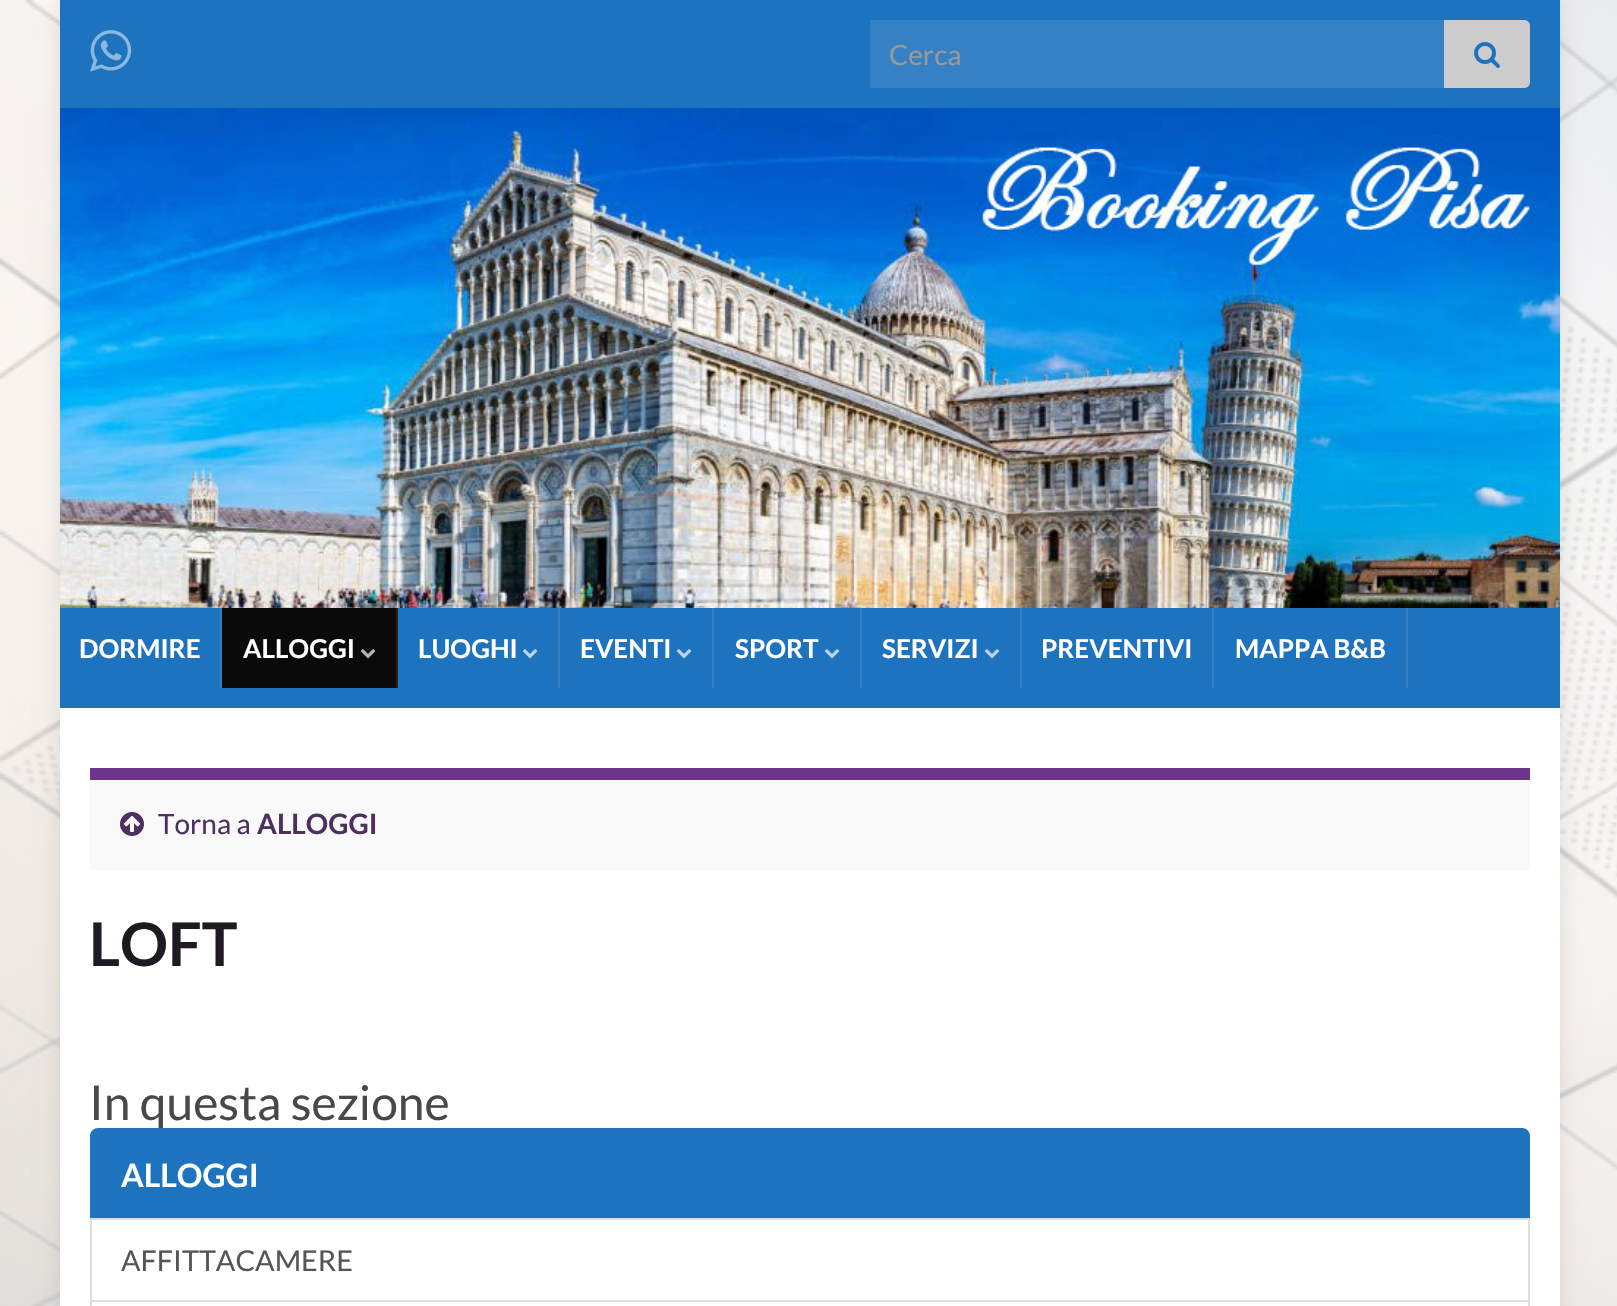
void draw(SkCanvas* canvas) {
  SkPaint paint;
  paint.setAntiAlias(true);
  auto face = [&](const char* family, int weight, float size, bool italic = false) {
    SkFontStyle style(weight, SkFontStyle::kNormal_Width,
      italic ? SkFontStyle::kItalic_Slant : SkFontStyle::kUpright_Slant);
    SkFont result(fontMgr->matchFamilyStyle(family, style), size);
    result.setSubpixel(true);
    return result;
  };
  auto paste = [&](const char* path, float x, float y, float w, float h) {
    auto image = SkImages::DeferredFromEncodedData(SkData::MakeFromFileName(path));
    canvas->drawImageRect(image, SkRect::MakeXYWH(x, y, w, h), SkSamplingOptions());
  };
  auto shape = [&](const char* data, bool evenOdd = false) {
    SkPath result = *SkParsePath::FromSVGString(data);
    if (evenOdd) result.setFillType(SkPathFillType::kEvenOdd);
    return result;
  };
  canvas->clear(0xffffffff);
  paste("img/1.png", 0, 0, 1617, 1306);
  paint.setColor(0x1a000000);
  paint.setMaskFilter(SkMaskFilter::MakeBlur(kNormal_SkBlurStyle, 10));
  canvas->drawRect(SkRect::MakeXYWH(60, 0, 1500, 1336), paint);
  paint.setMaskFilter(nullptr);
  paint.setColor(0xff1e73be);
  canvas->drawRect(SkRect::MakeXYWH(60, 0, 1500, 108), paint);
  paste("img/2.png", 90, 30, 42, 42);
  paint.setColor(0xff3581c5);
  canvas->drawRect(SkRect::MakeXYWH(870, 20, 574, 68), paint);
  paint.setColor(0xffcccccc);
  canvas->drawPath(shape("M1444 20H1524C1527.5 20 1530 22.5 1530 26V82C1530 85.5 1527.5 88 1524 88H1444Z"), paint);
  paste("img/3.png", 1474, 42, 26, 26);
  paste("img/4.png", 60, 108, 1500, 500);
  {
    const struct { float x, y, w, h; SkColor color; } items[] = {
      {60, 608, 1500, 100, 0xff1e73be},
      {220, 608, 2, 80, 0xff3581c5},
      {222, 608, 174, 80, 0xff0b0a0b},
      {396, 608, 2, 80, 0xff232323},
    };
    for (auto [x, y, w, h, color] : items) {
      paint.setColor(color);
      canvas->drawRect(SkRect::MakeXYWH(x, y, w, h), paint);
    }
  }
  paste("img/5.png", 360, 649, 16, 10);
  paint.setColor(0xff3581c5);
  canvas->drawRect(SkRect::MakeXYWH(558, 608, 2, 80), paint);
  paste("img/6.png", 522, 649, 16, 10);
  canvas->drawRect(SkRect::MakeXYWH(712, 608, 2, 80), paint);
  paste("img/6.png", 676, 649, 16, 10);
  canvas->drawRect(SkRect::MakeXYWH(860, 608, 2, 80), paint);
  paste("img/6.png", 824, 649, 16, 10);
  canvas->drawRect(SkRect::MakeXYWH(1020, 608, 2, 80), paint);
  paste("img/6.png", 984, 649, 16, 10);
  {
    const struct { float x, y, w, h; SkColor color; } items[] = {
      {1212, 608, 2, 80, 0xff3581c5},
      {1406, 608, 2, 80, 0xff3581c5},
      {60, 708, 1500, 598, 0xffffffff},
      {90, 780, 1440, 90, 0xfff9f9f9},
      {90, 768, 1440, 12, 0xff6b3589},
    };
    for (auto [x, y, w, h, color] : items) {
      paint.setColor(color);
      canvas->drawRect(SkRect::MakeXYWH(x, y, w, h), paint);
    }
  }
  paste("img/7.png", 120, 812, 24, 24);
  auto f0 = face("Lato", 400, 28);
  paint.setColor(0xff999999);
  canvas->drawString("Cerca", 889, 65, f0, paint);
  auto f1 = face("Lato", 700, 26);
  paint.setColor(0xffffffff);
  {
    const struct { const char* s; float x, y; } items[] = {
      {"DORMIRE", 79, 658},
      {"ALLOGGI", 243, 658},
      {"LUOGHI", 418, 658},
      {"EVENTI", 580, 658},
      {"SPORT", 735, 658},
      {"SERVIZI", 882, 658},
      {"PREVENTIVI", 1041, 658},
      {"MAPPA B&B", 1235, 658},
    };
    for (auto [s, x, y] : items) {
      canvas->drawString(s, x, y, f1, paint);
    }
  }
  paint.setColor(0xff4e305e);
  canvas->drawString("Torna a", 158, 834, f0, paint);
  auto f2 = face("Lato", 700, 28);
  canvas->drawString("ALLOGGI", 257, 834, f2, paint);
  auto f3 = face("Lato", 700, 60);
  paint.setColor(0xff1f1a22);
  canvas->drawString("LOFT", 89, 966, f3, paint);
  auto f4 = face("Lato", 400, 48);
  paint.setColor(0xff4a474b);
  canvas->drawString("In questa sezione", 89, 1120, f4, paint);
  paint.setColor(0xff1e73be);
  canvas->drawPath(shape("M98 1129H1522C1526 1129 1529 1132 1529 1136V1219H91V1136C91 1132 94 1129 98 1129Z"), paint);
  paint.setStroke(true);
  paint.setStrokeWidth(2);
  canvas->drawPath(shape("M98 1129H1522C1526 1129 1529 1132 1529 1136V1219H91V1136C91 1132 94 1129 98 1129Z"), paint);
  auto f5 = face("Lato", 700, 32);
  paint.setStroke(false);
  paint.setColor(0xffffffff);
  canvas->drawString("ALLOGGI", 121, 1187, f5, paint);
  paint.setStroke(true);
  paint.setColor(0xffdddddd);
  canvas->drawRect(SkRect::MakeXYWH(91, 1219, 1438, 82), paint);
  auto f6 = face("Lato", 400, 28.75f);
  paint.setStroke(false);
  paint.setColor(0xff555555);
  canvas->drawString("AFFITTACAMERE", 121, 1271, f6, paint);
  paint.setStroke(true);
  paint.setColor(0xffdddddd);
  canvas->drawRect(SkRect::MakeXYWH(91, 1301, 1438, 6), paint);
}
